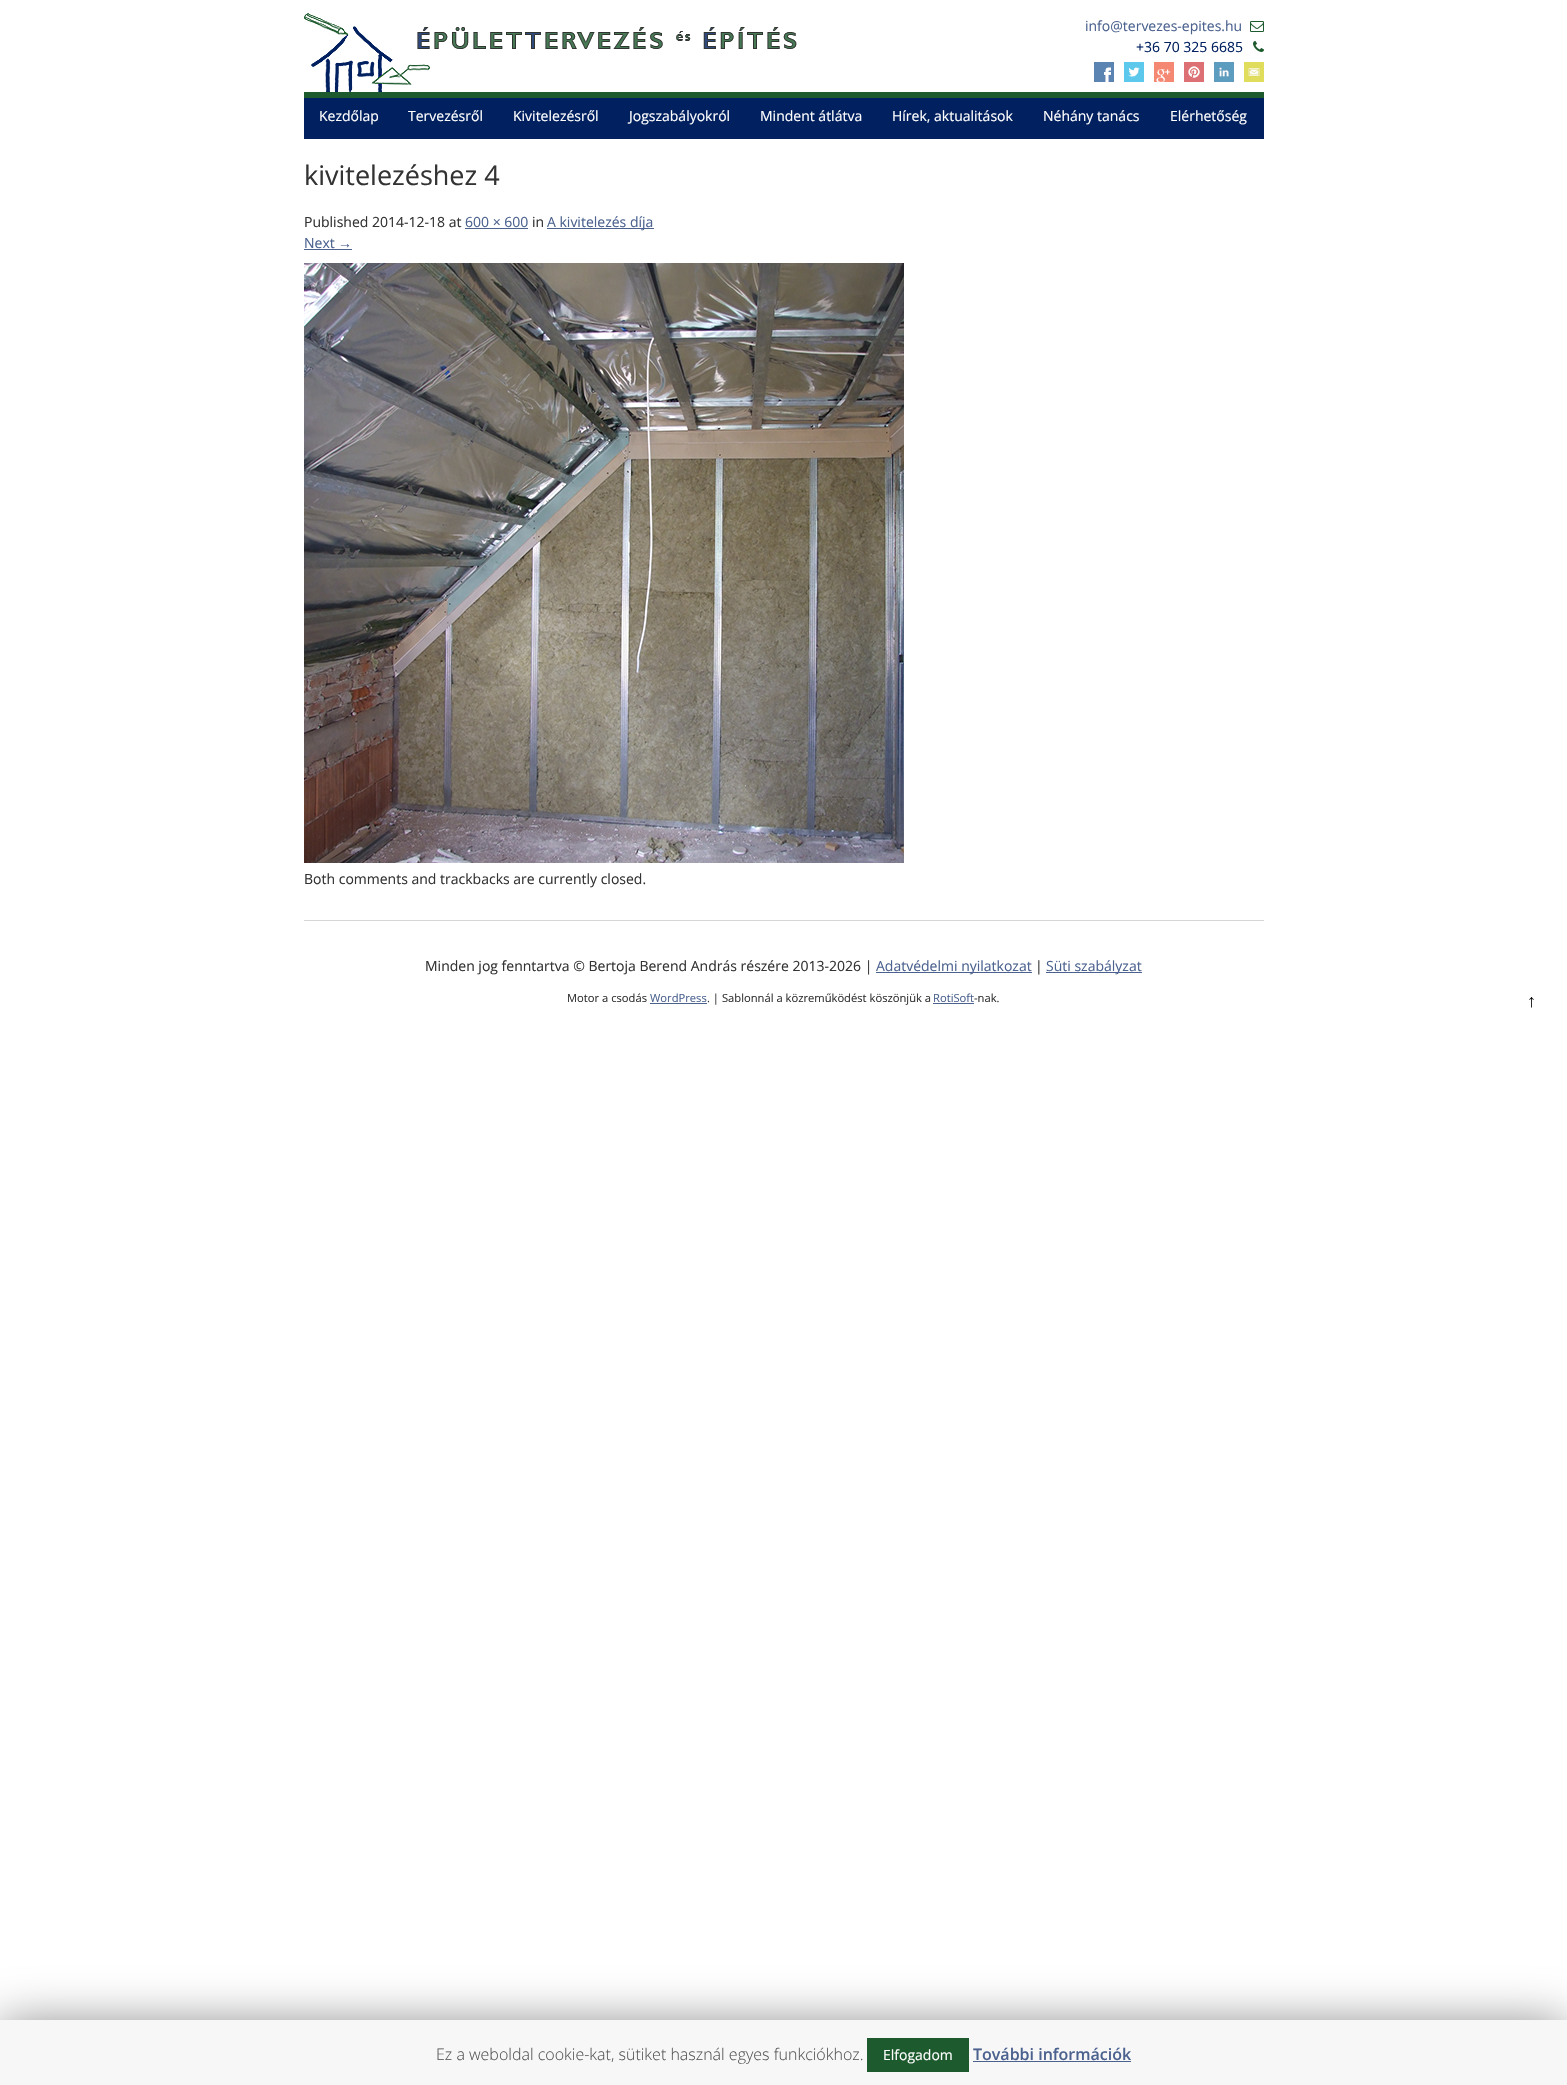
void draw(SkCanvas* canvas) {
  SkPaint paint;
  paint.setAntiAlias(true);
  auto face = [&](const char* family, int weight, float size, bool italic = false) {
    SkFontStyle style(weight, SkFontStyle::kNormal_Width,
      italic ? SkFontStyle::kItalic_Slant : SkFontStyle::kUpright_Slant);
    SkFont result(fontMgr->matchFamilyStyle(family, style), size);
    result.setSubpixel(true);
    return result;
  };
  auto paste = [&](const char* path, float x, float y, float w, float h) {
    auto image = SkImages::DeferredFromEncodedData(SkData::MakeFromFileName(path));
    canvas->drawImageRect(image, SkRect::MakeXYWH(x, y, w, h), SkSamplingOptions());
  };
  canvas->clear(0xffffffff);
  paste("img/1.png", 304, 13, 493, 79);
  paste("img/2.png", 1250, 21, 14, 11);
  paste("img/3.png", 1253, 41, 11, 11);
  paste("img/4.png", 1094, 62, 20, 20);
  paste("img/5.png", 1124, 62, 20, 20);
  paste("img/6.png", 1154, 62, 20, 20);
  paste("img/7.png", 1184, 62, 20, 20);
  paste("img/8.png", 1214, 62, 20, 20);
  paste("img/9.png", 1244, 62, 20, 20);
  {
    const struct { float x, y, w, h; SkColor color; } items[] = {
      {304, 92, 960, 6, 0xff1d5a2d},
      {304, 98, 960, 41, 0xff002060},
      {465, 228, 63, 1, 0xff4b628f},
      {547, 228, 107, 1, 0xff4b628f},
      {304, 249, 48, 1, 0xff4b628f},
    };
    for (auto [x, y, w, h, color] : items) {
      paint.setColor(color);
      canvas->drawRect(SkRect::MakeXYWH(x, y, w, h), paint);
    }
  }
  paste("img/10.png", 304, 263, 600, 600);
  {
    const struct { float x, y, w, h; SkColor color; } items[] = {
      {304, 920, 960, 1, 0xffd6d6d6},
      {876, 972, 156, 1, 0xff4b628f},
      {1046, 972, 96, 1, 0xff4b628f},
      {650, 1003, 57, 1, 0xff4b628f},
      {933, 1003, 41, 1, 0xff4b628f},
    };
    for (auto [x, y, w, h, color] : items) {
      paint.setColor(color);
      canvas->drawRect(SkRect::MakeXYWH(x, y, w, h), paint);
    }
  }
  paint.setColor(0x80000000);
  paint.setMaskFilter(SkMaskFilter::MakeBlur(kNormal_SkBlurStyle, 25));
  canvas->drawRect(SkRect::MakeXYWH(0, 2025, 1567, 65), paint);
  paint.setMaskFilter(nullptr);
  {
    const struct { float x, y, w, h; SkColor color; } items[] = {
      {0, 2020, 1567, 65, 0xfff7f7f7},
      {867, 2038, 102, 34, 0xff1d5a2d},
      {973, 2061, 158, 1, 0xff4b628f},
    };
    for (auto [x, y, w, h, color] : items) {
      paint.setColor(color);
      canvas->drawRect(SkRect::MakeXYWH(x, y, w, h), paint);
    }
  }
  auto f0 = face("Open Sans", 400, 14);
  canvas->drawString("info@tervezes-epites.hu", 1085, 31, f0, paint);
  paint.setColor(0xff002060);
  canvas->drawString("+36 70 325 6685", 1136, 52, f0, paint);
  paint.setColor(0xffffffff);
  {
    const struct { const char* s; float x, y; } items[] = {
      {"Kezdőlap", 319, 121},
      {"Tervezésről", 408, 121},
      {"Kivitelezésről", 513, 121},
      {"Jogszabályokról", 629, 121},
      {"Mindent átlátva", 760, 121},
      {"Hírek, aktualitások", 892, 121},
      {"Néhány tanács", 1043, 121},
      {"Elérhetőség", 1170, 121},
    };
    for (auto [s, x, y] : items) {
      canvas->drawString(s, x, y, f0, paint);
    }
  }
  auto f1 = face("Open Sans", 400, 27);
  paint.setColor(0xff333333);
  canvas->drawString("kivitelezéshez 4", 304, 185, f1, paint);
  canvas->drawString("Published 2014-12-18 at", 304, 227, f0, paint);
  paint.setColor(0xff4b628f);
  canvas->drawString("600 × 600", 465, 227, f0, paint);
  paint.setColor(0xff333333);
  canvas->drawString("in", 532, 227, f0, paint);
  paint.setColor(0xff4b628f);
  canvas->drawString("A kivitelezés díja", 547, 227, f0, paint);
  canvas->drawString("Next", 304, 248, f0, paint);
  auto f2 = face("Liberation Sans", 400, 14);
  canvas->drawString("→", 338, 248, f2, paint);
  paint.setColor(0xff333333);
  canvas->drawString("Both comments and trackbacks are currently closed.", 304, 884, f0, paint);
  canvas->drawString("Minden jog fenntartva © Bertoja Berend András részére 2013-2026 |", 425, 971, f0, paint);
  paint.setColor(0xff4b628f);
  canvas->drawString("Adatvédelmi nyilatkozat", 876, 971, f0, paint);
  paint.setColor(0xff333333);
  canvas->drawString("|", 1035, 971, f0, paint);
  paint.setColor(0xff4b628f);
  canvas->drawString("Süti szabályzat", 1046, 971, f0, paint);
  auto f3 = face("Open Sans", 400, 11.2f);
  paint.setColor(0xff333333);
  canvas->drawString("Motor a csodás", 567, 1002, f3, paint);
  paint.setColor(0xff4b628f);
  canvas->drawString("WordPress", 650, 1002, f3, paint);
  paint.setColor(0xff333333);
  canvas->drawString(". | Sablonnál a közreműködést köszönjük a", 707, 1002, f3, paint);
  paint.setColor(0xff4b628f);
  canvas->drawString("RotiSoft", 933, 1002, f3, paint);
  paint.setColor(0xff333333);
  canvas->drawString("-nak.", 974, 1002, f3, paint);
  auto f4 = face("Liberation Sans", 400, 18);
  paint.setColor(0xff000000);
  canvas->drawString("↑", 1527, 1007, f4, paint);
  auto f5 = face("Open Sans", 300, 16);
  paint.setColor(0xff565656);
  canvas->drawString("Ez a weboldal cookie-kat, sütiket használ egyes funkciókhoz.", 436, 2060, f5, paint);
  paint.setColor(0xffffffff);
  canvas->drawString("Elfogadom", 883, 2060, f0, paint);
  auto f6 = face("Open Sans", 600, 16);
  paint.setColor(0xff4b628f);
  canvas->drawString("További információk", 973, 2060, f6, paint);
}
